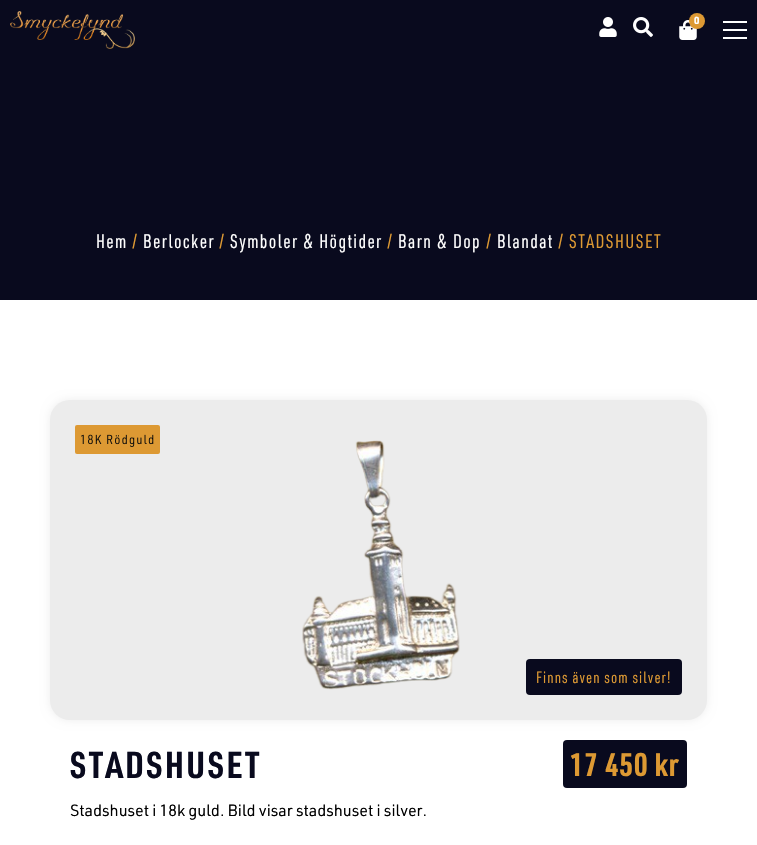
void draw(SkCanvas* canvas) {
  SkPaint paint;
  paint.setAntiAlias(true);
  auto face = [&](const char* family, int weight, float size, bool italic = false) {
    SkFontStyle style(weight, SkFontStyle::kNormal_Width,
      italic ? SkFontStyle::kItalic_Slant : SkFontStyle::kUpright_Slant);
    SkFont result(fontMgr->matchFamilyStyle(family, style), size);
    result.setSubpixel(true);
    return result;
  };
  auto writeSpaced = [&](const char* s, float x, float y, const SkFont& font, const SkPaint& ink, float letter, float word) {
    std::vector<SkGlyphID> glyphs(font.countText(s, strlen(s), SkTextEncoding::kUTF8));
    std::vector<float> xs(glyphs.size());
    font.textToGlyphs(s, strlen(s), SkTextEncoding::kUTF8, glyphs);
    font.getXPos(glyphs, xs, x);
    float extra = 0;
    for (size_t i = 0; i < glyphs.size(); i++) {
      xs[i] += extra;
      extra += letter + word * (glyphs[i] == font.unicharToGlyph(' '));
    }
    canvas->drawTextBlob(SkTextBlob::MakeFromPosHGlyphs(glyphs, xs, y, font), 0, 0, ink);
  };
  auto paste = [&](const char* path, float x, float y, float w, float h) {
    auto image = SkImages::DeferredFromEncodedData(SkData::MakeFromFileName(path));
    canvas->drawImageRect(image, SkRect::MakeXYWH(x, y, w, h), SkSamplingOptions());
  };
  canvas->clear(0xffffffff);
  paint.setColor(0xff090a1e);
  canvas->drawRect(SkRect::MakeXYWH(0, 0, 757, 300), paint);
  paste("img/1.png", 10, 11, 125, 38);
  paste("img/2.png", 599, 17, 18, 20);
  paste("img/3.png", 633, 17, 20, 20);
  paste("img/4.png", 679, 20, 18, 20);
  paint.setColor(0xffdd9933);
  canvas->drawCircle(697, 21, 8, paint);
  {
    const struct { float x, y, w, h; SkColor color; } items[] = {
      {723, 21, 24, 2, 0xffffffff},
      {723, 29, 24, 2, 0xffffffff},
      {723, 37, 24, 2, 0xffffffff},
    };
    for (auto [x, y, w, h, color] : items) {
      paint.setColor(color);
      canvas->drawRect(SkRect::MakeXYWH(x, y, w, h), paint);
    }
  }
  paint.setColor(0x12000000);
  paint.setMaskFilter(SkMaskFilter::MakeBlur(kNormal_SkBlurStyle, 5));
  canvas->drawRoundRect(SkRect::MakeXYWH(50, 400, 657, 320), 20, 20, paint);
  paint.setMaskFilter(nullptr);
  paint.setColor(0xffececec);
  canvas->drawRoundRect(SkRect::MakeXYWH(50, 400, 657, 320), 20, 20, paint);
  paint.setColor(0xffdd9933);
  canvas->drawRoundRect(SkRect::MakeXYWH(75, 425, 85, 29), 2, 2, paint);
  paste("img/5.png", 81, 434, 73, 13);
  paste("img/6.png", 302, 440, 158, 250);
  paint.setColor(0xff090a1e);
  canvas->drawRoundRect(SkRect::MakeXYWH(526, 659, 156, 36), 4, 4, paint);
  canvas->drawRoundRect(SkRect::MakeXYWH(563, 740, 124, 48), 4, 4, paint);
  auto f0 = face("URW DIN", 700, 10);
  paint.setColor(0xffffffff);
  writeSpaced("0", 694, 24, f0, paint, 1.1f, 0);
  auto f1 = face("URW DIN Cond", 400, 19.25f);
  writeSpaced("Hem", 96, 248, f1, paint, 1.4f, 0);
  paint.setColor(0xffdd9933);
  writeSpaced("/", 132, 248, f1, paint, 1.4f, 0);
  paint.setColor(0xffffffff);
  writeSpaced("Berlocker", 143, 248, f1, paint, 1.4f, 0);
  paint.setColor(0xffdd9933);
  writeSpaced("/", 219, 248, f1, paint, 1.4f, 0);
  paint.setColor(0xffffffff);
  writeSpaced("Symboler & Högtider", 230, 248, f1, paint, 1.4f, 0);
  paint.setColor(0xffdd9933);
  writeSpaced("/", 387, 248, f1, paint, 1.4f, 0);
  paint.setColor(0xffffffff);
  writeSpaced("Barn & Dop", 398, 248, f1, paint, 1.4f, 0);
  paint.setColor(0xffdd9933);
  writeSpaced("/", 486, 248, f1, paint, 1.4f, 0);
  paint.setColor(0xffffffff);
  writeSpaced("Blandat", 497, 248, f1, paint, 1.4f, 0);
  paint.setColor(0xffdd9933);
  writeSpaced("/ STADSHUSET", 558, 248, f1, paint, 1.4f, 0);
  auto f2 = face("URW DIN Cond", 400, 16);
  writeSpaced("Finns även som silver!", 536, 683, f2, paint, 1.1f, 0);
  auto f3 = face("URW DIN Cond", 700, 36.75f);
  paint.setColor(0xff090a1e);
  writeSpaced("STADSHUSET", 70, 778, f3, paint, 2.5f, 0);
  auto f4 = face("URW DIN Cond", 700, 32);
  paint.setColor(0xffdd9933);
  writeSpaced("17 450 kr", 570, 776, f4, paint, 1, 0);
  auto f5 = face("URW DIN", 400, 16);
  paint.setColor(0xff000000);
  canvas->drawString("Stadshuset i 18k guld. Bild visar stadshuset i silver.", 70, 816, f5, paint);
}
